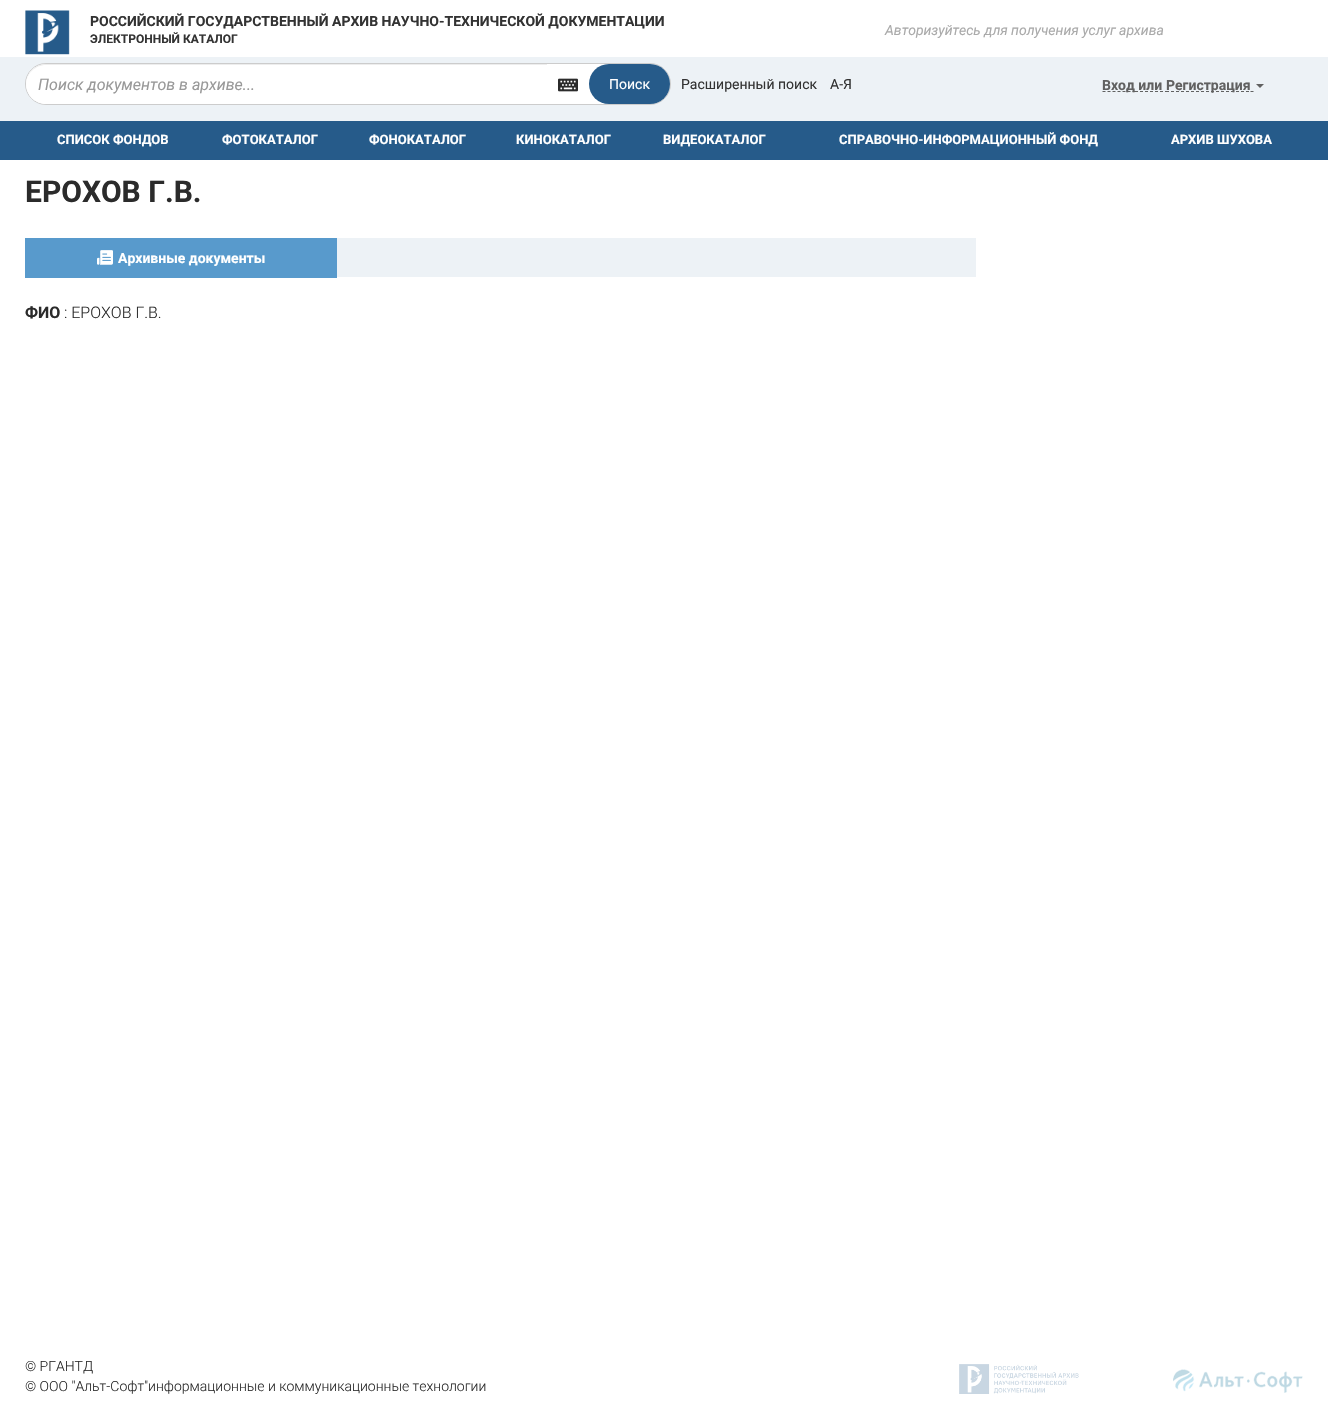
void draw(SkCanvas* canvas) {
  SkPaint paint;
  paint.setAntiAlias(true);
  auto face = [&](const char* family, int weight, float size, bool italic = false) {
    SkFontStyle style(weight, SkFontStyle::kNormal_Width,
      italic ? SkFontStyle::kItalic_Slant : SkFontStyle::kUpright_Slant);
    SkFont result(fontMgr->matchFamilyStyle(family, style), size);
    result.setSubpixel(true);
    return result;
  };
  auto paste = [&](const char* path, float x, float y, float w, float h) {
    auto image = SkImages::DeferredFromEncodedData(SkData::MakeFromFileName(path));
    canvas->drawImageRect(image, SkRect::MakeXYWH(x, y, w, h), SkSamplingOptions());
  };
  auto shape = [&](const char* data, bool evenOdd = false) {
    SkPath result = *SkParsePath::FromSVGString(data);
    if (evenOdd) result.setFillType(SkPathFillType::kEvenOdd);
    return result;
  };
  canvas->clear(0xffffffff);
  paint.setColor(0xffedf2f6);
  canvas->drawRect(SkRect::MakeXYWH(0, 57, 1328, 64), paint);
  paste("img/1.png", 25, 10, 45, 45);
  paint.setColor(0xffffffff);
  canvas->drawRoundRect(SkRect::MakeXYWH(25.5f, 63.5f, 645, 41), 20.5f, 20.5f, paint);
  paint.setStroke(true);
  paint.setStrokeWidth(1);
  paint.setColor(0xffcccccc);
  canvas->drawRoundRect(SkRect::MakeXYWH(25.5f, 63.5f, 645, 41), 20.5f, 20.5f, paint);
  paint.setStroke(false);
  paint.setColor(0xffffffff);
  canvas->drawPath(shape("M46 64H547V104H46C35 104 26 95 26 84C26 73 35 64 46 64Z"), paint);
  paint.setColor(0x12000000);
  canvas->drawPath(shape("M46 65H547V64H46C35 64 26 73 26 85C26 74 35 65 46 65Z"), paint);
  paste("img/2.png", 558, 78, 20, 14);
  paint.setColor(0xff265b8a);
  canvas->drawRoundRect(SkRect::MakeXYWH(589, 64, 81, 40), 20, 20, paint);
  paint.setStroke(true);
  paint.setColor(0xff616161);
  paint.setPathEffect(SkDashPathEffect::Make({{3, 2}}, 0));
  canvas->drawPath(shape("M1102.5 91.5H1135"), paint);
  paint.setPathEffect(nullptr);
  paint.setPathEffect(SkDashPathEffect::Make({{3, 2}}, 0));
  canvas->drawPath(shape("M1166 91.5H1250.5"), paint);
  paint.setPathEffect(nullptr);
  paint.setStroke(false);
  canvas->drawPath(shape("M1256 84H1264L1260 88Z"), paint);
  paint.setStroke(true);
  paint.setPathEffect(SkDashPathEffect::Make({{3, 2}}, 0));
  canvas->drawPath(shape("M1135 91.5H1166"), paint);
  paint.setPathEffect(nullptr);
  canvas->drawPath(shape("M1250.5 91.5H1253.5"), paint);
  paint.setStroke(false);
  {
    const struct { float x, y, w, h; SkColor color; } items[] = {
      {0, 121, 1328, 39, 0xff265b8a},
      {337, 238, 639, 39, 0xffedf2f6},
      {25, 238, 312, 40, 0xff589acc},
    };
    for (auto [x, y, w, h, color] : items) {
      paint.setColor(color);
      canvas->drawRect(SkRect::MakeXYWH(x, y, w, h), paint);
    }
  }
  paste("img/3.png", 97, 250, 16, 15);
  paste("img/4.png", 959, 1364, 120, 30);
  paste("img/5.png", 1173, 1369, 130, 24);
  auto f0 = face("Roboto", 700, 14);
  paint.setColor(0xff333333);
  canvas->drawString("РОССИЙСКИЙ ГОСУДАРСТВЕННЫЙ АРХИВ НАУЧНО-ТЕХНИЧЕСКОЙ ДОКУМЕНТАЦИИ", 90, 26, f0, paint);
  auto f1 = face("Roboto", 700, 12);
  canvas->drawString("ЭЛЕКТРОННЫЙ КАТАЛОГ", 90, 43, f1, paint);
  auto f2 = face("Roboto", 400, 16, true);
  paint.setColor(0xff999999);
  canvas->drawString("Поиск документов в архиве...", 38, 90, f2, paint);
  auto f3 = face("Roboto", 400, 14);
  paint.setColor(0xffffffff);
  canvas->drawString("Поиск", 609, 89, f3, paint);
  paint.setColor(0xff333333);
  canvas->drawString("Расширенный поиск", 681, 89, f3, paint);
  canvas->drawString("А-Я", 830, 89, f3, paint);
  auto f4 = face("Roboto", 400, 14, true);
  paint.setColor(0xffaaaaaa);
  canvas->drawString("Авторизуйтесь для получения услуг архива", 885, 35, f4, paint);
  paint.setColor(0xff616161);
  canvas->drawString("Вход или", 1102, 90, f0, paint);
  canvas->drawString("Регистрация", 1166, 90, f0, paint);
  auto f5 = face("Roboto", 700, 13);
  paint.setColor(0xffffffff);
  {
    const struct { const char* s; float x, y; } items[] = {
      {"СПИСОК ФОНДОВ", 57, 144},
      {"ФОТОКАТАЛОГ", 222, 144},
      {"ФОНОКАТАЛОГ", 369, 144},
      {"КИНОКАТАЛОГ", 516, 144},
      {"ВИДЕОКАТАЛОГ", 663, 144},
      {"СПРАВОЧНО-ИНФОРМАЦИОННЫЙ ФОНД", 839, 144},
      {"АРХИВ ШУХОВА", 1171, 144},
    };
    for (auto [s, x, y] : items) {
      canvas->drawString(s, x, y, f5, paint);
    }
  }
  auto f6 = face("Roboto", 700, 30);
  paint.setColor(0xff2b2b2b);
  canvas->drawString("ЕРОХОВ Г.В.", 25, 202, f6, paint);
  paint.setColor(0xffffffff);
  canvas->drawString("Архивные документы", 118, 263, f0, paint);
  auto f7 = face("Roboto", 700, 16);
  paint.setColor(0xff2b2b2b);
  canvas->drawString("ФИО", 25, 318, f7, paint);
  auto f8 = face("Roboto", 300, 16);
  canvas->drawString(": ЕРОХОВ Г.В.", 64, 318, f8, paint);
  auto f9 = face("Roboto", 300, 14);
  canvas->drawString("© РГАНТД", 25, 1371, f9, paint);
  canvas->drawString("© ООО \"Альт-Софт\"информационные и коммуникационные технологии", 25, 1391, f9, paint);
}
